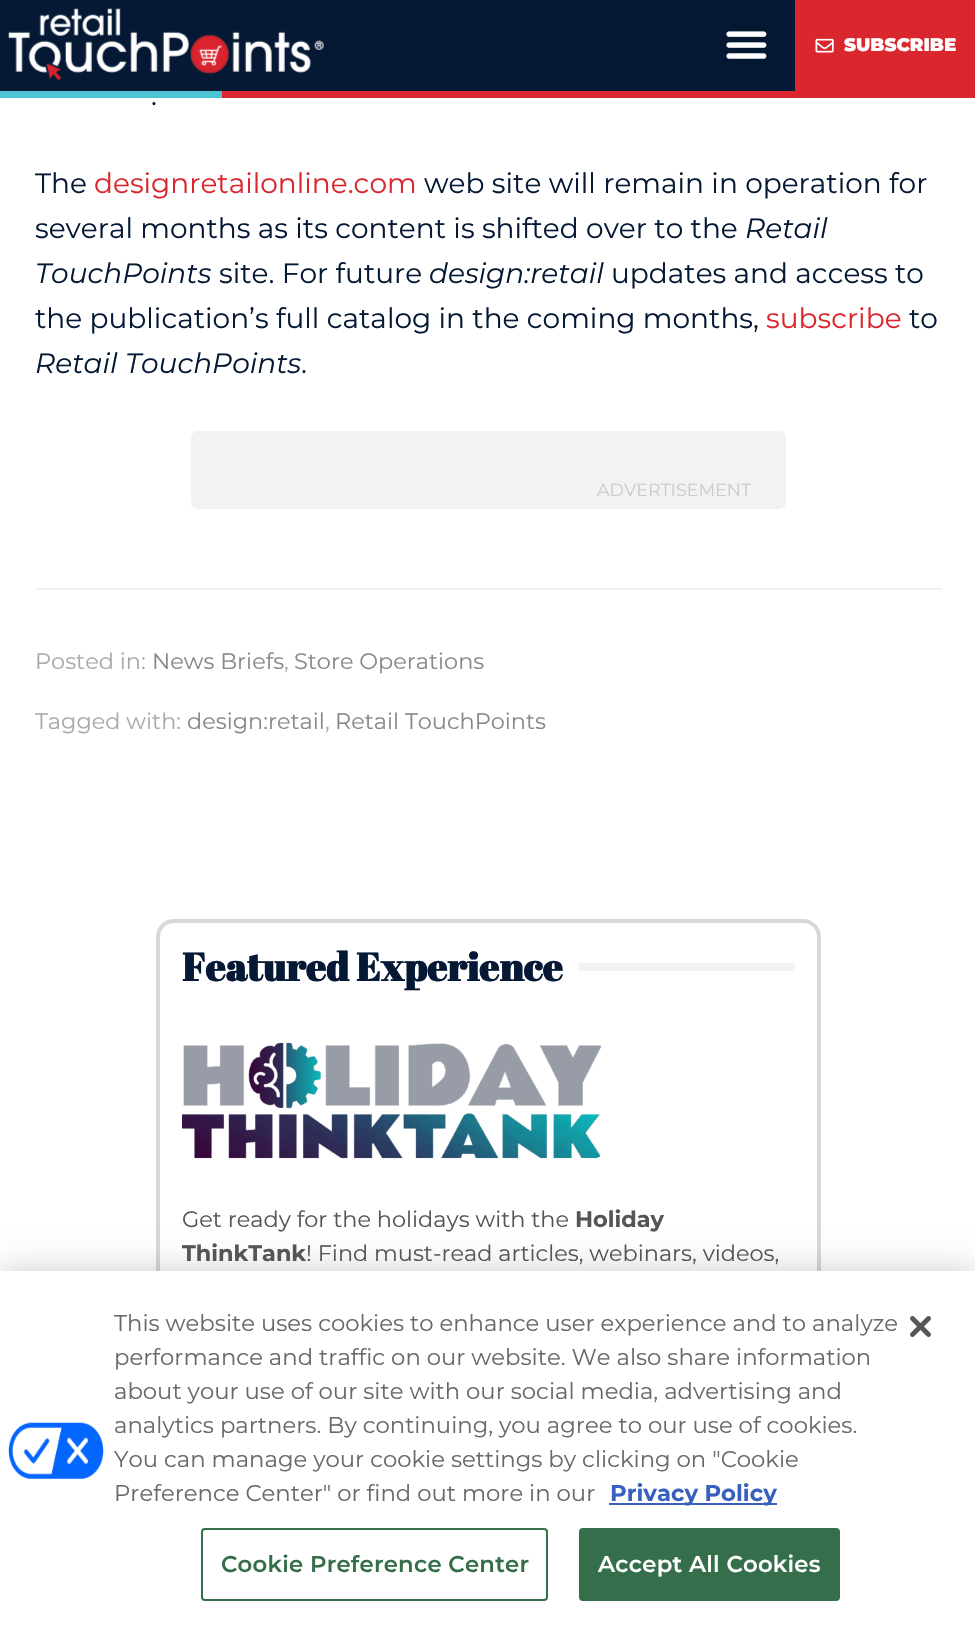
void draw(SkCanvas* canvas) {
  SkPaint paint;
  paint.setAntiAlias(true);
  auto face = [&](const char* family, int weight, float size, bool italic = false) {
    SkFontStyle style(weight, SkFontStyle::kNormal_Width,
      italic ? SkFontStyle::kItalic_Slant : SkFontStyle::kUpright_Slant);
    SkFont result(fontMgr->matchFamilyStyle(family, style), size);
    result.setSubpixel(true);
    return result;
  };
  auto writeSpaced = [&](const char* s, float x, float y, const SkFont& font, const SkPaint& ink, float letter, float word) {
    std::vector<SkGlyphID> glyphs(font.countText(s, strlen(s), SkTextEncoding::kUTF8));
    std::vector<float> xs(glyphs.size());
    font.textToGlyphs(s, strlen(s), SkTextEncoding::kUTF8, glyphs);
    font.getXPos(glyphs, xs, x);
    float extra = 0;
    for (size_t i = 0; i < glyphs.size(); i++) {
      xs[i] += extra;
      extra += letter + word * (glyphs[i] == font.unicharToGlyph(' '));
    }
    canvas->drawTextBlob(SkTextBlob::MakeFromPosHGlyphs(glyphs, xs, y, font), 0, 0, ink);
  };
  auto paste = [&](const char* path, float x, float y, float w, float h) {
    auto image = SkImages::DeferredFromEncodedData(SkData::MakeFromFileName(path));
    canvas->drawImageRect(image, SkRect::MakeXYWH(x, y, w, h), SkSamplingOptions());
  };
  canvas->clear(0xffffffff);
  paint.setColor(0xff051934);
  canvas->drawRect(SkRect::MakeXYWH(0, 0, 795, 91), paint);
  paint.setColor(0xffd9272d);
  canvas->drawRect(SkRect::MakeXYWH(222, 91, 753, 7), paint);
  paste("img/1.png", 8, 8, 316, 73);
  paint.setColor(0xff051831);
  canvas->drawRect(SkRect::MakeXYWH(725, 23, 43, 44), paint);
  paste("img/2.png", 726, 31, 41, 28);
  paint.setColor(0xffd9272d);
  canvas->drawRect(SkRect::MakeXYWH(795, 0, 180, 91), paint);
  paste("img/3.png", 815, 38, 19, 15);
  paint.setColor(0xff4bc4d4);
  canvas->drawRect(SkRect::MakeXYWH(0, 91, 222, 7), paint);
  paint.setColor(0xfff2f2f2);
  canvas->drawRoundRect(SkRect::MakeXYWH(191, 431, 595, 78), 7, 7, paint);
  canvas->drawRect(SkRect::MakeXYWH(35, 588, 907, 2), paint);
  paint.setStroke(true);
  paint.setStrokeWidth(4);
  paint.setColor(0xffd8d8d8);
  canvas->drawRoundRect(SkRect::MakeXYWH(158, 921, 661, 593), 16, 16, paint);
  paint.setStroke(false);
  paint.setColor(0xfff2f2f2);
  canvas->drawRect(SkRect::MakeXYWH(579, 963, 216, 8), paint);
  paste("img/4.png", 182, 1042, 420, 117);
  paint.setColor(0x33000000);
  paint.setMaskFilter(SkMaskFilter::MakeBlur(kNormal_SkBlurStyle, 16));
  canvas->drawRect(SkRect::MakeXYWH(0, 1271, 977, 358), paint);
  paint.setMaskFilter(nullptr);
  paint.setColor(0xffffffff);
  canvas->drawRect(SkRect::MakeXYWH(0, 1271, 975, 357), paint);
  paste("img/5.png", 8, 1422, 96, 57);
  paint.setColor(0xff3860be);
  canvas->drawRect(SkRect::MakeXYWH(609, 1503, 168, 2), paint);
  paint.setStroke(true);
  paint.setStrokeWidth(2);
  paint.setColor(0xff346e4a);
  canvas->drawRoundRect(SkRect::MakeXYWH(202, 1529, 345, 71), 3, 3, paint);
  paint.setStroke(false);
  canvas->drawRoundRect(SkRect::MakeXYWH(580, 1529, 259, 71), 3, 3, paint);
  paint.setStroke(true);
  canvas->drawRoundRect(SkRect::MakeXYWH(580, 1529, 259, 71), 3, 3, paint);
  paste("img/6.png", 910, 1316, 21, 21);
  auto f0 = face("Montserrat", 900, 18.25f);
  paint.setStroke(false);
  paint.setColor(0xffffffff);
  canvas->drawString("SUBSCRIBE", 844, 51, f0, paint);
  auto f1 = face("Montserrat", 400, 28);
  paint.setColor(0xff051934);
  canvas->drawString(".", 151, 105, f1, paint);
  canvas->drawString("The", 35, 193, f1, paint);
  paint.setColor(0xffd9272d);
  canvas->drawString("designretailonline.com", 94, 193, f1, paint);
  paint.setColor(0xff051934);
  canvas->drawString("web site will remain in operation for", 424, 193, f1, paint);
  canvas->drawString("several months as its content is shifted over to the", 35, 238, f1, paint);
  auto f2 = face("Montserrat", 400, 28, true);
  canvas->drawString("Retail", 745, 238, f2, paint);
  canvas->drawString("TouchPoints", 35, 283, f2, paint);
  canvas->drawString("site. For future", 219, 283, f1, paint);
  canvas->drawString("design:retail", 429, 283, f2, paint);
  canvas->drawString("updates and access to", 611, 283, f1, paint);
  canvas->drawString("the publication’s full catalog in the coming months,", 35, 328, f1, paint);
  paint.setColor(0xffd9272d);
  canvas->drawString("subscribe", 766, 328, f1, paint);
  paint.setColor(0xff051934);
  canvas->drawString("to", 909, 328, f1, paint);
  canvas->drawString("Retail TouchPoints", 35, 373, f2, paint);
  canvas->drawString(".", 301, 373, f1, paint);
  auto f3 = face("Montserrat", 400, 17.5f);
  paint.setColor(0xffcccccc);
  canvas->drawString("ADVERTISEMENT", 597, 496, f3, paint);
  auto f4 = face("Montserrat", 400, 22.4f);
  paint.setColor(0xffaaaaaa);
  canvas->drawString("Posted in:", 35, 669, f4, paint);
  paint.setColor(0xff888888);
  canvas->drawString("News Briefs", 152, 669, f4, paint);
  paint.setColor(0xffaaaaaa);
  canvas->drawString(",", 284, 669, f4, paint);
  paint.setColor(0xff888888);
  canvas->drawString("Store Operations", 294, 669, f4, paint);
  paint.setColor(0xffaaaaaa);
  canvas->drawString("Tagged with:", 35, 729, f4, paint);
  paint.setColor(0xff888888);
  canvas->drawString("design:retail", 187, 729, f4, paint);
  paint.setColor(0xffaaaaaa);
  canvas->drawString(",", 325, 729, f4, paint);
  paint.setColor(0xff888888);
  canvas->drawString("Retail TouchPoints", 335, 729, f4, paint);
  auto f5 = face("Abril Fatface", 700, 39.25f);
  paint.setColor(0xff051934);
  canvas->drawString("Featured Experience", 182, 981, f5, paint);
  paint.setColor(0xff555555);
  canvas->drawString("Get ready for the holidays with the", 182, 1227, f4, paint);
  auto f6 = face("Montserrat", 700, 22.4f);
  canvas->drawString("Holiday", 575, 1227, f6, paint);
  canvas->drawString("ThinkTank", 182, 1261, f6, paint);
  canvas->drawString("! Find must-read articles, webinars, videos,", 306, 1261, f4, paint);
  auto f7 = face("Montserrat", 400, 22.75f);
  paint.setColor(0xff696969);
  {
    const struct { const char* s; float x, y; } items[] = {
      {"This website uses cookies to enhance user experience and to analyze", 114, 1331},
      {"performance and traffic on our website. We also share information", 114, 1365},
      {"about your use of our site with our social media, advertising and", 114, 1399},
      {"analytics partners. By continuing, you agree to our use of cookies.", 114, 1433},
      {"You can manage your cookie settings by clicking on \"Cookie", 114, 1467},
      {"Preference Center\" or find out more in our", 114, 1501},
    };
    for (auto [s, x, y] : items) {
      canvas->drawString(s, x, y, f7, paint);
    }
  }
  auto f8 = face("Montserrat", 700, 22.75f);
  paint.setColor(0xff3860be);
  canvas->drawString("Privacy Policy", 610, 1501, f8, paint);
  auto f9 = face("Montserrat", 600, 22.75f);
  paint.setColor(0xff346e4a);
  writeSpaced("Cookie Preference Center", 221, 1572, f9, paint, 0.25f, 0);
  paint.setColor(0xffffffff);
  writeSpaced("Accept All Cookies", 598, 1572, f9, paint, 0.25f, 0);
}
